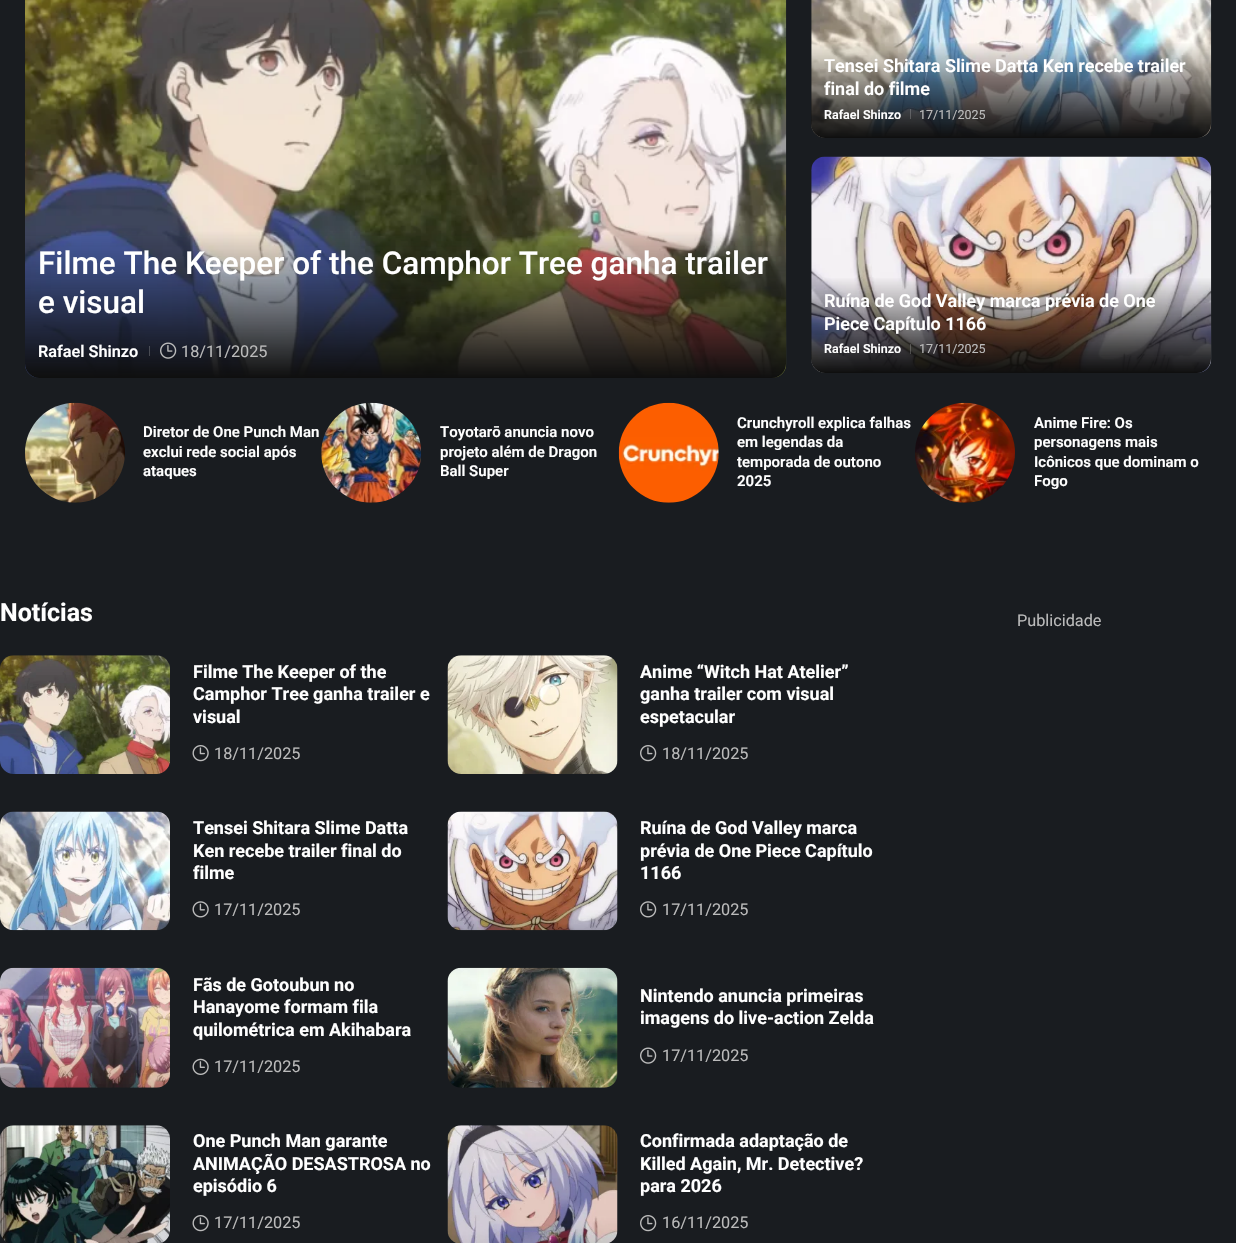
void draw(SkCanvas* canvas) {
  SkPaint paint;
  paint.setAntiAlias(true);
  auto face = [&](const char* family, int weight, float size, bool italic = false) {
    SkFontStyle style(weight, SkFontStyle::kNormal_Width,
      italic ? SkFontStyle::kItalic_Slant : SkFontStyle::kUpright_Slant);
    SkFont result(fontMgr->matchFamilyStyle(family, style), size);
    result.setSubpixel(true);
    return result;
  };
  auto paste = [&](const char* path, float x, float y, float w, float h) {
    auto image = SkImages::DeferredFromEncodedData(SkData::MakeFromFileName(path));
    canvas->drawImageRect(image, SkRect::MakeXYWH(x, y, w, h), SkSamplingOptions());
  };
  auto shape = [&](const char* data, bool evenOdd = false) {
    SkPath result = *SkParsePath::FromSVGString(data);
    if (evenOdd) result.setFillType(SkPathFillType::kEvenOdd);
    return result;
  };
  canvas->clear(0xff191c20);
  paste("img/1.png", 25, 0, 762, 378);
  {
    const SkColor colors[] = {0x000e0e0e, 0xff0e0e0e};
    const float stops[] = {0, 1};
    const SkPoint ends[] = {{406, 231}, {406, 378}};
    paint.setShader(SkGradientShader::MakeLinear(ends, colors, stops, 2, SkTileMode::kClamp));
    paint.setAlpha(255);
  }
  canvas->drawPath(shape("M25 231H786V364C786 371.5 779.5 378 772 378H39C31.5 378 25 371.5 25 364Z"), paint);
  paint.setShader(nullptr);
  paint.setColor(0x4dbbbbbb);
  canvas->drawRect(SkRect::MakeXYWH(149, 346, 1, 10), paint);
  paste("img/2.png", 160, 342, 17, 17);
  paste("img/3.png", 811, 0, 401, 138);
  {
    const SkColor colors[] = {0x000e0e0e, 0xff0e0e0e};
    const float stops[] = {0, 1};
    const SkPoint ends[] = {{1011, 42}, {1011, 138}};
    paint.setShader(SkGradientShader::MakeLinear(ends, colors, stops, 2, SkTileMode::kClamp));
    paint.setAlpha(255);
  }
  canvas->drawPath(shape("M811 43H1211V124C1211 131.5 1204.5 138 1197 138H825C817.5 138 811 131.5 811 124Z"), paint);
  paint.setShader(nullptr);
  paint.setColor(0x4dbbbbbb);
  canvas->drawRect(SkRect::MakeXYWH(910, 109, 1, 10), paint);
  paste("img/4.png", 811, 156, 401, 217);
  {
    const SkColor colors[] = {0x000e0e0e, 0xff0e0e0e};
    const float stops[] = {0, 1};
    const SkPoint ends[] = {{1011, 277}, {1011, 373}};
    paint.setShader(SkGradientShader::MakeLinear(ends, colors, stops, 2, SkTileMode::kClamp));
    paint.setAlpha(255);
  }
  canvas->drawPath(shape("M811 278H1211V359C1211 366.5 1204.5 373 1197 373H825C817.5 373 811 366.5 811 359Z"), paint);
  paint.setShader(nullptr);
  paint.setColor(0x4dbbbbbb);
  canvas->drawRect(SkRect::MakeXYWH(910, 344, 1, 10), paint);
  paste("img/5.png", 25, 402, 100, 101);
  paste("img/6.png", 321, 402, 100, 101);
  paste("img/7.png", 618, 402, 101, 101);
  paste("img/8.png", 915, 402, 100, 101);
  paste("img/9.png", 0, 655, 170, 119);
  paste("img/10.png", 192, 745, 17, 17);
  paste("img/11.png", 447, 655, 171, 119);
  paste("img/12.png", 640, 745, 17, 17);
  paste("img/13.png", 0, 811, 170, 120);
  paste("img/14.png", 192, 901, 17, 17);
  paste("img/15.png", 447, 811, 171, 120);
  paste("img/16.png", 640, 901, 17, 17);
  paste("img/17.png", 0, 967, 170, 121);
  paste("img/18.png", 192, 1058, 17, 17);
  paste("img/19.png", 447, 967, 171, 121);
  paste("img/20.png", 640, 1047, 17, 17);
  paste("img/21.png", 0, 1125, 170, 118);
  paste("img/10.png", 192, 1215, 17, 17);
  paste("img/22.png", 447, 1125, 171, 118);
  paste("img/12.png", 640, 1215, 17, 17);
  auto f0 = face("Roboto", 500, 31.5f);
  paint.setColor(0xffffffff);
  canvas->drawString("Filme The Keeper of the Camphor Tree ganha trailer", 38, 274, f0, paint);
  canvas->drawString("e visual", 38, 313, f0, paint);
  auto f1 = face("Roboto", 600, 16.25f);
  canvas->drawString("Rafael Shinzo", 38, 357, f1, paint);
  auto f2 = face("Roboto", 400, 16.25f);
  paint.setColor(0xffbbbbbb);
  canvas->drawString("18/11/2025", 181, 357, f2, paint);
  auto f3 = face("Roboto", 600, 18);
  paint.setColor(0xffffffff);
  canvas->drawString("Tensei Shitara Slime Datta Ken recebe trailer", 824, 72, f3, paint);
  canvas->drawString("final do filme", 824, 95, f3, paint);
  auto f4 = face("Roboto", 600, 12.5f);
  canvas->drawString("Rafael Shinzo", 824, 119, f4, paint);
  auto f5 = face("Roboto", 400, 12.5f);
  paint.setColor(0xffbbbbbb);
  canvas->drawString("17/11/2025", 919, 119, f5, paint);
  paint.setColor(0xffffffff);
  canvas->drawString("Ruína de God Valley marca prévia de One", 824, 307, f3, paint);
  canvas->drawString("Piece Capítulo 1166", 824, 330, f3, paint);
  canvas->drawString("Rafael Shinzo", 824, 353, f4, paint);
  paint.setColor(0xffbbbbbb);
  canvas->drawString("17/11/2025", 919, 353, f5, paint);
  auto f6 = face("Roboto", 600, 15);
  paint.setColor(0xffffffff);
  {
    const struct { const char* s; float x, y; } items[] = {
      {"Diretor de One Punch Man", 143, 437},
      {"exclui rede social após", 143, 457},
      {"ataques", 143, 476},
      {"Toyotarō anuncia novo", 440, 437},
      {"projeto além de Dragon", 440, 457},
      {"Ball Super", 440, 476},
      {"Crunchyroll explica falhas", 737, 428},
      {"em legendas da", 737, 447},
      {"temporada de outono", 737, 467},
      {"2025", 737, 486},
      {"Anime Fire: Os", 1034, 428},
      {"personagens mais", 1034, 447},
      {"Icônicos que dominam o", 1034, 467},
      {"Fogo", 1034, 486},
    };
    for (auto [s, x, y] : items) {
      canvas->drawString(s, x, y, f6, paint);
    }
  }
  auto f7 = face("Roboto", 700, 25);
  canvas->drawString("Notícias", 0, 621, f7, paint);
  auto f8 = face("Roboto", 700, 18);
  {
    const struct { const char* s; float x, y; } items[] = {
      {"Filme The Keeper of the", 193, 678},
      {"Camphor Tree ganha trailer e", 193, 700},
      {"visual", 193, 723},
    };
    for (auto [s, x, y] : items) {
      canvas->drawString(s, x, y, f8, paint);
    }
  }
  paint.setColor(0xffbbbbbb);
  canvas->drawString("18/11/2025", 214, 759, f2, paint);
  paint.setColor(0xffffffff);
  {
    const struct { const char* s; float x, y; } items[] = {
      {"Anime “Witch Hat Atelier”", 640, 678},
      {"ganha trailer com visual", 640, 700},
      {"espetacular", 640, 723},
    };
    for (auto [s, x, y] : items) {
      canvas->drawString(s, x, y, f8, paint);
    }
  }
  paint.setColor(0xffbbbbbb);
  canvas->drawString("18/11/2025", 662, 759, f2, paint);
  paint.setColor(0xffffffff);
  {
    const struct { const char* s; float x, y; } items[] = {
      {"Tensei Shitara Slime Datta", 193, 834},
      {"Ken recebe trailer final do", 193, 857},
      {"filme", 193, 879},
    };
    for (auto [s, x, y] : items) {
      canvas->drawString(s, x, y, f8, paint);
    }
  }
  paint.setColor(0xffbbbbbb);
  canvas->drawString("17/11/2025", 214, 915, f2, paint);
  paint.setColor(0xffffffff);
  {
    const struct { const char* s; float x, y; } items[] = {
      {"Ruína de God Valley marca", 640, 834},
      {"prévia de One Piece Capítulo", 640, 857},
      {"1166", 640, 879},
    };
    for (auto [s, x, y] : items) {
      canvas->drawString(s, x, y, f8, paint);
    }
  }
  paint.setColor(0xffbbbbbb);
  canvas->drawString("17/11/2025", 662, 915, f2, paint);
  paint.setColor(0xffffffff);
  {
    const struct { const char* s; float x, y; } items[] = {
      {"Fãs de Gotoubun no", 193, 991},
      {"Hanayome formam fila", 193, 1013},
      {"quilométrica em Akihabara", 193, 1036},
    };
    for (auto [s, x, y] : items) {
      canvas->drawString(s, x, y, f8, paint);
    }
  }
  paint.setColor(0xffbbbbbb);
  canvas->drawString("17/11/2025", 214, 1072, f2, paint);
  paint.setColor(0xffffffff);
  canvas->drawString("Nintendo anuncia primeiras", 640, 1002, f8, paint);
  canvas->drawString("imagens do live-action Zelda", 640, 1024, f8, paint);
  paint.setColor(0xffbbbbbb);
  canvas->drawString("17/11/2025", 662, 1061, f2, paint);
  paint.setColor(0xffffffff);
  {
    const struct { const char* s; float x, y; } items[] = {
      {"One Punch Man garante", 193, 1147},
      {"ANIMAÇÃO DESASTROSA no", 193, 1170},
      {"episódio 6", 193, 1192},
    };
    for (auto [s, x, y] : items) {
      canvas->drawString(s, x, y, f8, paint);
    }
  }
  paint.setColor(0xffbbbbbb);
  canvas->drawString("17/11/2025", 214, 1228, f2, paint);
  paint.setColor(0xffffffff);
  {
    const struct { const char* s; float x, y; } items[] = {
      {"Confirmada adaptação de", 640, 1147},
      {"Killed Again, Mr. Detective?", 640, 1170},
      {"para 2026", 640, 1192},
    };
    for (auto [s, x, y] : items) {
      canvas->drawString(s, x, y, f8, paint);
    }
  }
  paint.setColor(0xffbbbbbb);
  canvas->drawString("16/11/2025", 662, 1228, f2, paint);
  canvas->drawString("Publicidade", 1017, 626, f2, paint);
}
